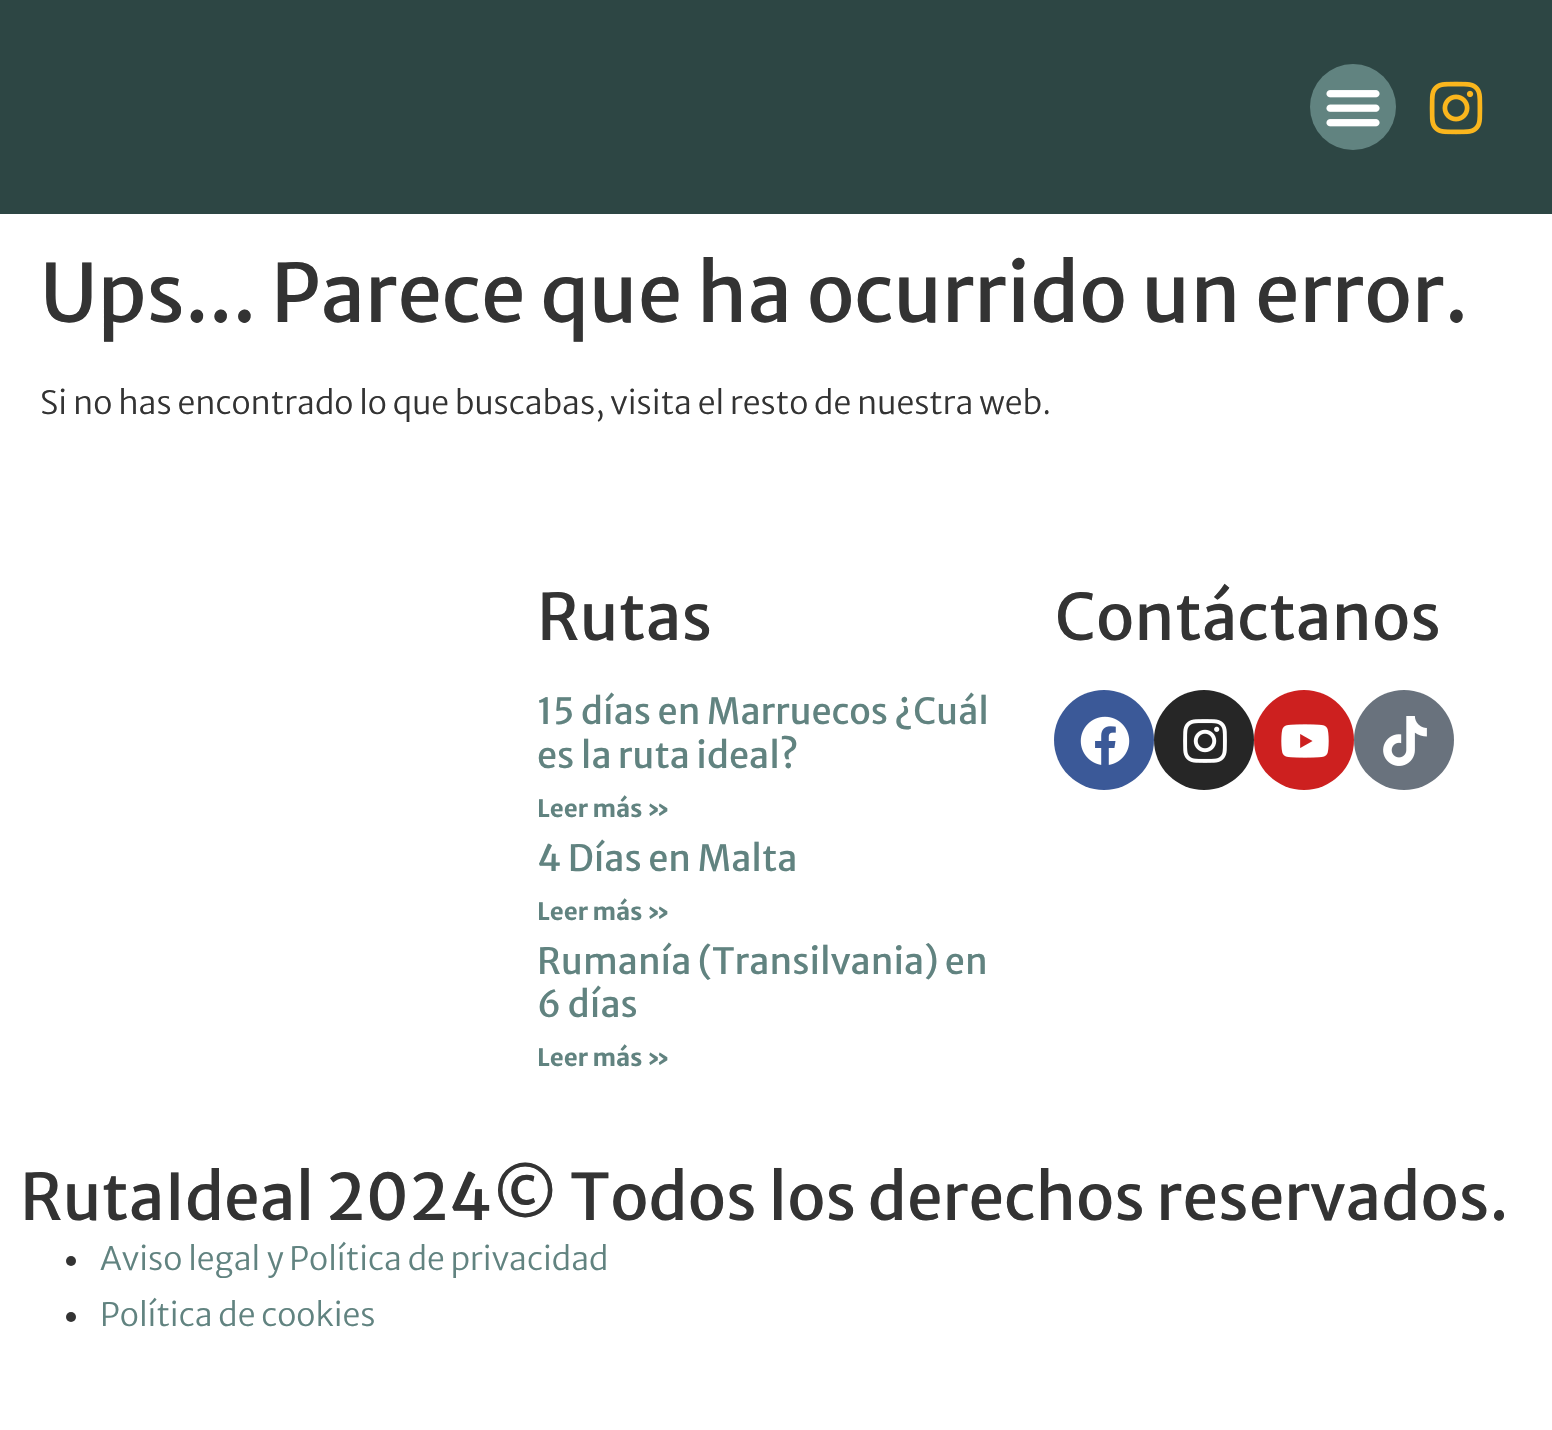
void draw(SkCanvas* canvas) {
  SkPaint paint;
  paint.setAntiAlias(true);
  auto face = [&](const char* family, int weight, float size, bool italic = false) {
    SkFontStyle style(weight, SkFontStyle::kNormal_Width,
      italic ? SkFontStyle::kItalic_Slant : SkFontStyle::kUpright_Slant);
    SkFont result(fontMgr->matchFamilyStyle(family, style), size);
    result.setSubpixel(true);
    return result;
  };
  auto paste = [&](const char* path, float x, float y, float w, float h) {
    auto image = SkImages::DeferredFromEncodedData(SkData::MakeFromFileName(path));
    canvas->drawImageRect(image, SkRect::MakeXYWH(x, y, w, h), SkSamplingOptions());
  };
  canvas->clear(0xffffffff);
  paint.setColor(0xff2d4644);
  canvas->drawRect(SkRect::MakeXYWH(0, 0, 1552, 214), paint);
  paint.setColor(0xff618380);
  canvas->drawCircle(1353, 107, 43, paint);
  paste("img/1.png", 1326, 90, 54, 37);
  paste("img/2.png", 1429, 81, 54, 54);
  paint.setColor(0xff3b5998);
  canvas->drawCircle(1104, 740, 50, paint);
  paste("img/3.png", 1080, 716, 50, 49);
  paint.setColor(0xff262626);
  canvas->drawCircle(1204, 740, 50, paint);
  paste("img/4.png", 1183, 719, 44, 44);
  paint.setColor(0xffcd201f);
  canvas->drawCircle(1304, 740, 50, paint);
  paste("img/5.png", 1281, 724, 48, 34);
  paint.setColor(0xff69727d);
  canvas->drawCircle(1404, 740, 50, paint);
  paste("img/6.png", 1383, 716, 44, 50);
  paint.setColor(0xff333333);
  canvas->drawCircle(71, 1261, 5, paint);
  canvas->drawCircle(71, 1317, 5, paint);
  auto f0 = face("Merriweather Sans", 400, 80);
  canvas->drawString("Ups... Parece que ha ocurrido un error.", 40, 322, f0, paint);
  auto f1 = face("Merriweather Sans", 300, 32);
  canvas->drawString("Si no has encontrado lo que buscabas, visita el resto de nuestra web.", 40, 414, f1, paint);
  auto f2 = face("Merriweather Sans", 400, 64);
  canvas->drawString("Rutas", 537, 640, f2, paint);
  auto f3 = face("Merriweather Sans", 400, 36);
  paint.setColor(0xff618380);
  canvas->drawString("15 días en Marruecos ¿Cuál", 537, 724, f3, paint);
  canvas->drawString("es la ruta ideal?", 537, 768, f3, paint);
  auto f4 = face("Merriweather Sans", 700, 24);
  canvas->drawString("Leer más »", 537, 817, f4, paint);
  canvas->drawString("4 Días en Malta", 537, 871, f3, paint);
  canvas->drawString("Leer más »", 537, 920, f4, paint);
  canvas->drawString("Rumanía (Transilvania) en", 537, 974, f3, paint);
  canvas->drawString("6 días", 537, 1017, f3, paint);
  canvas->drawString("Leer más »", 537, 1066, f4, paint);
  paint.setColor(0xff333333);
  canvas->drawString("Contáctanos", 1055, 640, f2, paint);
  canvas->drawString("RutaIdeal 2024© Todos los derechos reservados.", 20, 1220, f2, paint);
  paint.setColor(0xff618380);
  canvas->drawString("Aviso legal y Política de privacidad", 100, 1270, f1, paint);
  canvas->drawString("Política de cookies", 100, 1326, f1, paint);
}
